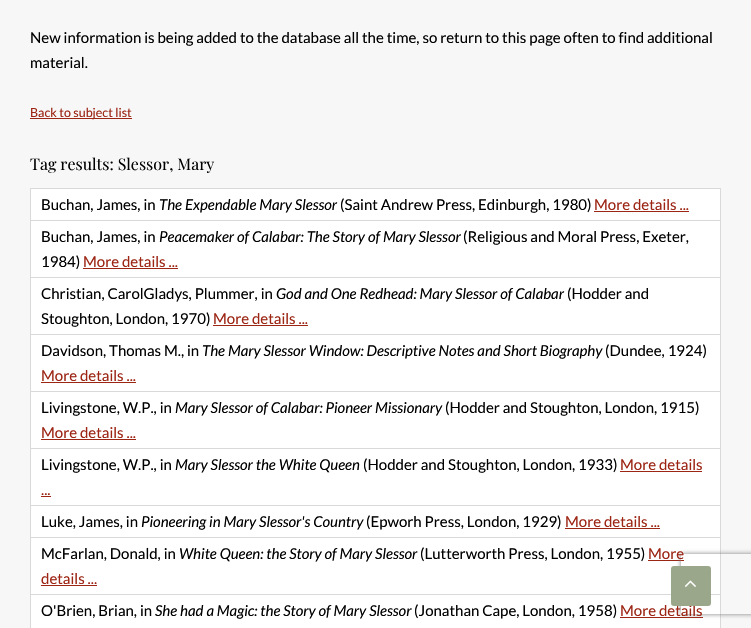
void draw(SkCanvas* canvas) {
  SkPaint paint;
  paint.setAntiAlias(true);
  auto face = [&](const char* family, int weight, float size, bool italic = false) {
    SkFontStyle style(weight, SkFontStyle::kNormal_Width,
      italic ? SkFontStyle::kItalic_Slant : SkFontStyle::kUpright_Slant);
    SkFont result(fontMgr->matchFamilyStyle(family, style), size);
    result.setSubpixel(true);
    return result;
  };
  auto paste = [&](const char* path, float x, float y, float w, float h) {
    auto image = SkImages::DeferredFromEncodedData(SkData::MakeFromFileName(path));
    canvas->drawImageRect(image, SkRect::MakeXYWH(x, y, w, h), SkSamplingOptions());
  };
  auto shape = [&](const char* data, bool evenOdd = false) {
    SkPath result = *SkParsePath::FromSVGString(data);
    if (evenOdd) result.setFillType(SkPathFillType::kEvenOdd);
    return result;
  };
  canvas->clear(0xfff7f7f7);
  {
    const struct { float x, y, w, h; SkColor color; } items[] = {
      {30, 118, 102, 1, 0xff9c2514},
      {30, 188, 691, 1, 0xffd9d9d9},
      {720, 188, 1, 440, 0xffd9d9d9},
      {30, 188, 1, 440, 0xffd9d9d9},
      {31, 189, 689, 31, 0xffffffff},
      {30, 220, 691, 1, 0xffd9d9d9},
      {594, 211, 95, 1, 0xff9c2514},
      {31, 221, 689, 56, 0xffffffff},
      {30, 277, 691, 1, 0xffd9d9d9},
      {83, 268, 95, 1, 0xff9c2514},
      {31, 278, 689, 56, 0xffffffff},
      {30, 334, 691, 1, 0xffd9d9d9},
      {213, 325, 95, 1, 0xff9c2514},
      {31, 335, 689, 56, 0xffffffff},
      {30, 391, 691, 1, 0xffd9d9d9},
      {41, 382, 95, 1, 0xff9c2514},
      {31, 392, 689, 56, 0xffffffff},
      {30, 448, 691, 1, 0xffd9d9d9},
      {41, 439, 95, 1, 0xff9c2514},
      {31, 449, 689, 56, 0xffffffff},
      {30, 505, 691, 1, 0xffd9d9d9},
      {620, 471, 82, 1, 0xff9c2514},
      {41, 496, 10, 1, 0xff9c2514},
      {31, 506, 689, 31, 0xffffffff},
      {30, 537, 691, 1, 0xffd9d9d9},
      {565, 528, 95, 1, 0xff9c2514},
      {31, 538, 689, 56, 0xffffffff},
      {30, 594, 691, 1, 0xffd9d9d9},
      {648, 560, 36, 1, 0xff9c2514},
      {41, 585, 56, 1, 0xff9c2514},
      {31, 595, 689, 33, 0xffffffff},
      {620, 617, 83, 1, 0xff9c2514},
    };
    for (auto [x, y, w, h, color] : items) {
      paint.setColor(color);
      canvas->drawRect(SkRect::MakeXYWH(x, y, w, h), paint);
    }
  }
  canvas->save();
  canvas->clipPath(shape("M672 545H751V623H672ZM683 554H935C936 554 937 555 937 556V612C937 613 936 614 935 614H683C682 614 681 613 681 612V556C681 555 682 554 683 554Z", true), true);
  paint.setColor(0xff808080);
  paint.setMaskFilter(SkMaskFilter::MakeBlur(kNormal_SkBlurStyle, 2.5f));
  canvas->drawRoundRect(SkRect::MakeXYWH(681, 554, 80, 60), 2, 2, paint);
  paint.setMaskFilter(nullptr);
  canvas->restore();
  auto f0 = face("Lato", 400, 15);
  paint.setColor(0xff000000);
  canvas->drawString("New information is being added to the database all the time, so return to this page often to find additional", 30, 43, f0, paint);
  canvas->drawString("material.", 30, 68, f0, paint);
  auto f1 = face("Lato", 400, 12.5f);
  paint.setColor(0xff9c2514);
  canvas->drawString("Back to subject list", 30, 117, f1, paint);
  auto f2 = face("Playfair Display", 400, 16);
  paint.setColor(0xff000000);
  canvas->drawString("Tag results: Slessor, Mary", 30, 170, f2, paint);
  canvas->drawString("Buchan, James, in", 41, 210, f0, paint);
  auto f3 = face("Lato", 400, 15, true);
  canvas->drawString("The Expendable Mary Slessor", 159, 210, f3, paint);
  canvas->drawString("(Saint Andrew Press, Edinburgh, 1980)", 340, 210, f0, paint);
  paint.setColor(0xff9c2514);
  canvas->drawString("More details ...", 594, 210, f0, paint);
  paint.setColor(0xff000000);
  canvas->drawString("Buchan, James, in", 41, 242, f0, paint);
  canvas->drawString("Peacemaker of Calabar: The Story of Mary Slessor", 159, 242, f3, paint);
  canvas->drawString("(Religious and Moral Press, Exeter,", 463, 242, f0, paint);
  canvas->drawString("1984)", 41, 267, f0, paint);
  paint.setColor(0xff9c2514);
  canvas->drawString("More details ...", 83, 267, f0, paint);
  paint.setColor(0xff000000);
  canvas->drawString("Christian, CarolGladys, Plummer, in", 41, 299, f0, paint);
  canvas->drawString("God and One Redhead: Mary Slessor of Calabar", 276, 299, f3, paint);
  canvas->drawString("(Hodder and", 567, 299, f0, paint);
  canvas->drawString("Stoughton, London, 1970)", 41, 324, f0, paint);
  paint.setColor(0xff9c2514);
  canvas->drawString("More details ...", 213, 324, f0, paint);
  paint.setColor(0xff000000);
  canvas->drawString("Davidson, Thomas M., in", 41, 356, f0, paint);
  canvas->drawString("The Mary Slessor Window: Descriptive Notes and Short Biography", 202, 356, f3, paint);
  canvas->drawString("(Dundee, 1924)", 605, 356, f0, paint);
  paint.setColor(0xff9c2514);
  canvas->drawString("More details ...", 41, 381, f0, paint);
  paint.setColor(0xff000000);
  canvas->drawString("Livingstone, W.P., in", 41, 413, f0, paint);
  canvas->drawString("Mary Slessor of Calabar: Pioneer Missionary", 175, 413, f3, paint);
  canvas->drawString("(Hodder and Stoughton, London, 1915)", 445, 413, f0, paint);
  paint.setColor(0xff9c2514);
  canvas->drawString("More details ...", 41, 438, f0, paint);
  paint.setColor(0xff000000);
  canvas->drawString("Livingstone, W.P., in", 41, 470, f0, paint);
  canvas->drawString("Mary Slessor the White Queen", 175, 470, f3, paint);
  canvas->drawString("(Hodder and Stoughton, London, 1933)", 363, 470, f0, paint);
  paint.setColor(0xff9c2514);
  canvas->drawString("More details", 620, 470, f0, paint);
  canvas->drawString("...", 41, 495, f0, paint);
  paint.setColor(0xff000000);
  canvas->drawString("Luke, James, in", 41, 527, f0, paint);
  canvas->drawString("Pioneering in Mary Slessor's Country", 141, 527, f3, paint);
  canvas->drawString("(Epworh Press, London, 1929)", 366, 527, f0, paint);
  paint.setColor(0xff9c2514);
  canvas->drawString("More details ...", 565, 527, f0, paint);
  paint.setColor(0xff000000);
  canvas->drawString("McFarlan, Donald, in", 41, 559, f0, paint);
  canvas->drawString("White Queen: the Story of Mary Slessor", 179, 559, f3, paint);
  canvas->drawString("(Lutterworth Press, London, 1955)", 420, 559, f0, paint);
  paint.setColor(0xff9c2514);
  canvas->drawString("More", 648, 559, f0, paint);
  canvas->drawString("details ...", 41, 584, f0, paint);
  paint.setColor(0xff000000);
  canvas->drawString("O'Brien, Brian, in", 41, 616, f0, paint);
  canvas->drawString("She had a Magic: the Story of Mary Slessor", 155, 616, f3, paint);
  canvas->drawString("(Jonathan Cape, London, 1958)", 414, 616, f0, paint);
  paint.setColor(0xff9c2514);
  canvas->drawString("More details", 620, 616, f0, paint);
  paint.setColor(0xff9ba78a);
  canvas->drawRoundRect(SkRect::MakeXYWH(671, 566, 40, 40), 3, 3, paint);
  paste("img/1.png", 685, 580, 11, 7);
}
